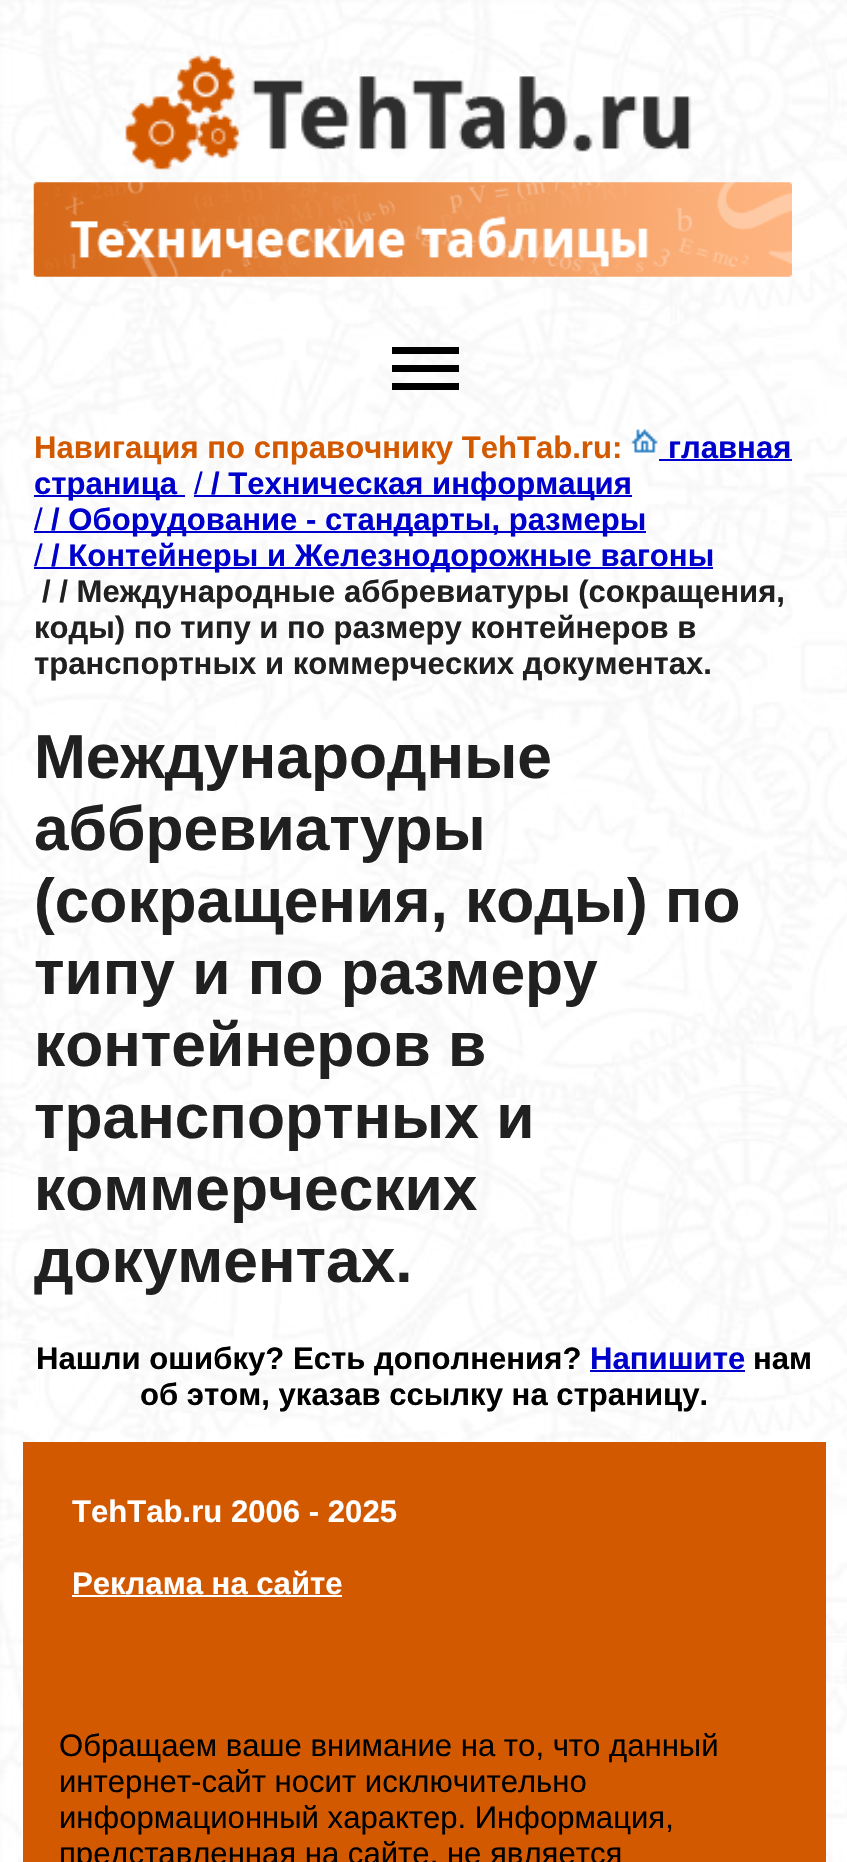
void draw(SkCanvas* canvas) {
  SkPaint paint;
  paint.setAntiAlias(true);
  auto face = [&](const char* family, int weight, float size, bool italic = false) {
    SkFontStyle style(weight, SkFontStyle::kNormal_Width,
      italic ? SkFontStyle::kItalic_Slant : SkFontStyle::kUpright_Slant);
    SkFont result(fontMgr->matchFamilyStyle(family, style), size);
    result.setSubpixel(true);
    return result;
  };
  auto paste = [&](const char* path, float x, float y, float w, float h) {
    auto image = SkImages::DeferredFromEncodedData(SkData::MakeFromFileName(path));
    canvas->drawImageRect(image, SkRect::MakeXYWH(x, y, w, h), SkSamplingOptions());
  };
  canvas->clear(0xffffffff);
  paste("img/1.png", 0, 0, 847, 1862);
  paste("img/2.png", 125, 55, 567, 115);
  paste("img/3.png", 33, 182, 759, 95);
  {
    const struct { float x, y, w, h; SkColor color; } items[] = {
      {392, 365, 67, 7, 0xff000000},
      {392, 347, 67, 7, 0xff000000},
      {392, 383, 67, 7, 0xff000000},
    };
    for (auto [x, y, w, h, color] : items) {
      paint.setColor(color);
      canvas->drawRect(SkRect::MakeXYWH(x, y, w, h), paint);
    }
  }
  paste("img/4.png", 631, 429, 27, 24);
  {
    const struct { float x, y, w, h; SkColor color; } items[] = {
      {808, 435, 7, 4, 0xffffffff},
      {659, 459, 133, 2, 0xff0000cc},
      {34, 495, 151, 2, 0xff0000cc},
      {194, 495, 438, 2, 0xff0000cc},
      {34, 531, 612, 2, 0xff0000cc},
      {34, 567, 679, 2, 0xff0000cc},
      {590, 1370, 155, 2, 0xff0000cc},
      {23, 1442, 803, 420, 0xffd35900},
      {72, 1595, 270, 2, 0xffffffff},
    };
    for (auto [x, y, w, h, color] : items) {
      paint.setColor(color);
      canvas->drawRect(SkRect::MakeXYWH(x, y, w, h), paint);
    }
  }
  auto f0 = face("Liberation Sans", 700, 31.1f);
  paint.setColor(0xffd35900);
  canvas->drawString("Навигация по справочнику TehTab.ru:", 34, 458, f0, paint);
  paint.setColor(0xff0000cc);
  canvas->drawString("главная", 668, 458, f0, paint);
  canvas->drawString("страница", 34, 494, f0, paint);
  auto f1 = face("Liberation Sans", 400, 31.1f);
  canvas->drawString("/", 194, 494, f1, paint);
  canvas->drawString("/ Техническая информация", 211, 494, f0, paint);
  canvas->drawString("/", 34, 530, f1, paint);
  canvas->drawString("/ Оборудование - стандарты, размеры", 51, 530, f0, paint);
  canvas->drawString("/", 34, 566, f1, paint);
  canvas->drawString("/ Контейнеры и Железнодорожные вагоны", 51, 566, f0, paint);
  paint.setColor(0xff202020);
  {
    const struct { const char* s; float x, y; } items[] = {
      {"/ / Международные аббревиатуры (сокращения,", 42, 602},
      {"коды) по типу и по размеру контейнеров в", 34, 638},
      {"транспортных и коммерческих документах.", 34, 674},
    };
    for (auto [s, x, y] : items) {
      canvas->drawString(s, x, y, f0, paint);
    }
  }
  auto f2 = face("Liberation Sans", 700, 62.25f);
  {
    const struct { const char* s; float x, y; } items[] = {
      {"Международные", 34, 778},
      {"аббревиатуры", 34, 850},
      {"(сокращения, коды) по", 34, 922},
      {"типу и по размеру", 34, 994},
      {"контейнеров в", 34, 1066},
      {"транспортных и", 34, 1138},
      {"коммерческих", 34, 1210},
      {"документах.", 34, 1282},
    };
    for (auto [s, x, y] : items) {
      canvas->drawString(s, x, y, f2, paint);
    }
  }
  paint.setColor(0xff000000);
  canvas->drawString("Нашли ошибку? Есть дополнения?", 36, 1369, f0, paint);
  paint.setColor(0xff0000cc);
  canvas->drawString("Напишите", 590, 1369, f0, paint);
  paint.setColor(0xff000000);
  canvas->drawString("нам", 753, 1369, f0, paint);
  canvas->drawString("об этом, указав ссылку на страницу.", 140, 1405, f0, paint);
  paint.setColor(0xffffffff);
  canvas->drawString("TehTab.ru 2006 - 2025", 72, 1522, f0, paint);
  canvas->drawString("Реклама на сайте", 72, 1594, f0, paint);
  paint.setColor(0xff000000);
  {
    const struct { const char* s; float x, y; } items[] = {
      {"Обращаем ваше внимание на то, что данный", 59, 1756},
      {"интернет-сайт носит исключительно", 59, 1792},
      {"информационный характер. Информация,", 59, 1828},
      {"представленная на сайте, не является", 59, 1864},
    };
    for (auto [s, x, y] : items) {
      canvas->drawString(s, x, y, f1, paint);
    }
  }
}
